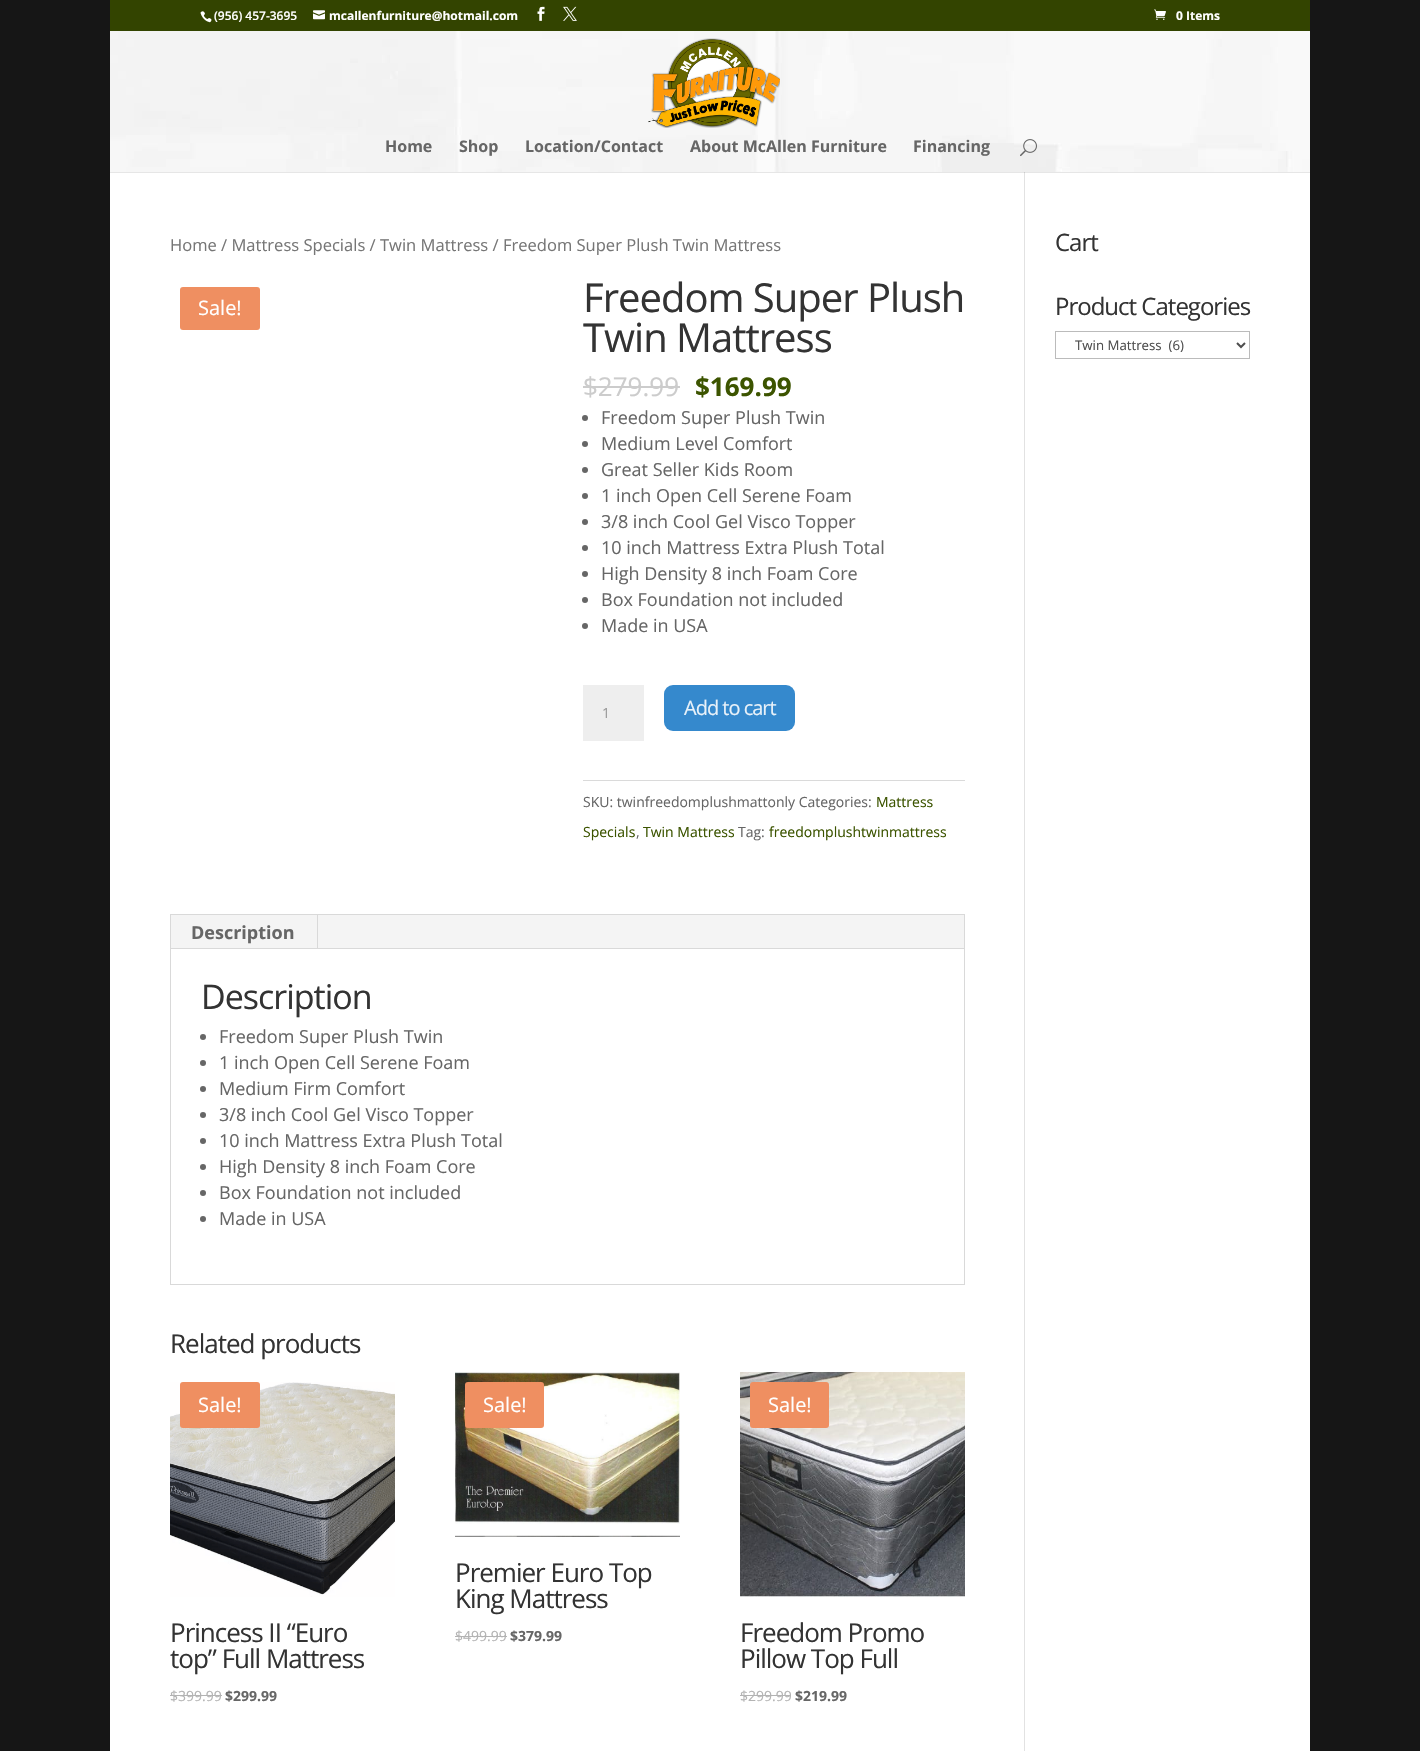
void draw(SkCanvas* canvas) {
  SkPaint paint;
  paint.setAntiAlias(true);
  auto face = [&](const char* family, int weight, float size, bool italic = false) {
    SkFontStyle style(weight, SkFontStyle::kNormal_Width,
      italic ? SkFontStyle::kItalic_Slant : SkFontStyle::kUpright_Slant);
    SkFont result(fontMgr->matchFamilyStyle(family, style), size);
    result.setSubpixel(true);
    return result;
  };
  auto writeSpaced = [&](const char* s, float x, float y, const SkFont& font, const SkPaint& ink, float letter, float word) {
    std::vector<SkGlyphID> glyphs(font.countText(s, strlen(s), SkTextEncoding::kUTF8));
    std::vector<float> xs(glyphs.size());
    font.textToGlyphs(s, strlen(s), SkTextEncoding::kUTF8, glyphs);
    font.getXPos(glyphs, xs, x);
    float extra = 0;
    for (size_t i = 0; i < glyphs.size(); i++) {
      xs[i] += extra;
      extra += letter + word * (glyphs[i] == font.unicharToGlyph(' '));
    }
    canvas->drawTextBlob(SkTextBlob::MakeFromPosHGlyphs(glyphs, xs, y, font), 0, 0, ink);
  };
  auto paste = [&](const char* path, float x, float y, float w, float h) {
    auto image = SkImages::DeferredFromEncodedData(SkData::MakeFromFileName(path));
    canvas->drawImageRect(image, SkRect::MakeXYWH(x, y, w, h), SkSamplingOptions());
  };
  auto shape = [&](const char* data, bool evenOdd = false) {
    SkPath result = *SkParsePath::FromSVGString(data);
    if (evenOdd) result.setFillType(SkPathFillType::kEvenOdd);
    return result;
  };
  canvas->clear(0xff161616);
  paint.setColor(0xff334400);
  canvas->drawRect(SkRect::MakeXYWH(110, 0, 1200, 31), paint);
  paste("img/1.png", 200, 11, 12, 12);
  paste("img/2.png", 313, 10, 12, 10);
  paste("img/3.png", 537, 6, 8, 15);
  paste("img/4.png", 563, 6, 14, 15);
  paste("img/5.png", 1154, 9, 12, 11);
  paste("img/6.png", 110, 31, 1200, 141);
  paste("img/7.png", 648, 38, 132, 90);
  paste("img/8.png", 1020, 139, 17, 18);
  {
    const struct { float x, y, w, h; SkColor color; } items[] = {
      {110, 173, 1200, 1578, 0xffffffff},
      {110, 172, 1200, 1, 0xffe6e6e6},
      {1024, 172, 1, 1579, 0xffe2e2e2},
      {1024, 172, 1, 1, 0xffcbcbcb},
    };
    for (auto [x, y, w, h, color] : items) {
      paint.setColor(color);
      canvas->drawRect(SkRect::MakeXYWH(x, y, w, h), paint);
    }
  }
  paint.setColor(0xffef8f61);
  canvas->drawRoundRect(SkRect::MakeXYWH(180, 287, 80, 43), 3, 3, paint);
  paint.setColor(0xffcccccc);
  canvas->drawRect(SkRect::MakeXYWH(583, 386, 97, 2), paint);
  paint.setColor(0xff666666);
  canvas->drawCircle(585, 418, 3, paint);
  canvas->drawCircle(585, 444, 3, paint);
  canvas->drawCircle(585, 470, 3, paint);
  canvas->drawCircle(585, 496, 3, paint);
  canvas->drawCircle(585, 522, 3, paint);
  canvas->drawCircle(585, 548, 3, paint);
  canvas->drawCircle(585, 574, 3, paint);
  canvas->drawCircle(585, 600, 3, paint);
  canvas->drawCircle(585, 626, 3, paint);
  paint.setColor(0xffeeeeee);
  canvas->drawRect(SkRect::MakeXYWH(583, 685, 61, 56), paint);
  paint.setColor(0xff3589cd);
  canvas->drawRoundRect(SkRect::MakeXYWH(664, 685, 131, 46), 9, 9, paint);
  paint.setColor(0xffdadada);
  canvas->drawRect(SkRect::MakeXYWH(583, 780, 382, 1), paint);
  paint.setStroke(true);
  paint.setStrokeWidth(1);
  paint.setColor(0xffd9d9d9);
  canvas->drawRect(SkRect::MakeXYWH(170.5f, 914.5f, 794, 370), paint);
  paint.setStroke(false);
  {
    const struct { float x, y, w, h; SkColor color; } items[] = {
      {171, 915, 793, 33, 0xfff4f4f4},
      {317, 915, 1, 34, 0xffd9d9d9},
      {171, 948, 793, 1, 0xffd9d9d9},
    };
    for (auto [x, y, w, h, color] : items) {
      paint.setColor(color);
      canvas->drawRect(SkRect::MakeXYWH(x, y, w, h), paint);
    }
  }
  paint.setColor(0xff666666);
  canvas->drawCircle(203, 1037, 3, paint);
  canvas->drawCircle(203, 1063, 3, paint);
  canvas->drawCircle(203, 1089, 3, paint);
  canvas->drawCircle(203, 1115, 3, paint);
  canvas->drawCircle(203, 1141, 3, paint);
  canvas->drawCircle(203, 1167, 3, paint);
  canvas->drawCircle(203, 1193, 3, paint);
  canvas->drawCircle(203, 1219, 3, paint);
  paste("img/9.png", 170, 1382, 225, 215);
  paint.setColor(0xffef8f61);
  canvas->drawRoundRect(SkRect::MakeXYWH(180, 1382, 80, 46), 3, 3, paint);
  paint.setColor(0xffb3b3b3);
  canvas->drawRect(SkRect::MakeXYWH(170, 1695, 52, 1), paint);
  paste("img/10.png", 455, 1372, 225, 165);
  paint.setColor(0xffef8f61);
  canvas->drawRoundRect(SkRect::MakeXYWH(465, 1382, 79, 46), 3, 3, paint);
  paint.setColor(0xffb3b3b3);
  canvas->drawRect(SkRect::MakeXYWH(455, 1636, 52, 1), paint);
  paste("img/11.png", 740, 1372, 225, 225);
  paint.setColor(0xffef8f61);
  canvas->drawRoundRect(SkRect::MakeXYWH(750, 1382, 79, 46), 3, 3, paint);
  paint.setColor(0xffb3b3b3);
  canvas->drawRect(SkRect::MakeXYWH(740, 1695, 51, 1), paint);
  paint.setStroke(true);
  paint.setColor(0xffbbbbbb);
  canvas->drawRect(SkRect::MakeXYWH(1055.5f, 331.5f, 194, 27), paint);
  paint.setStrokeWidth(2);
  paint.setColor(0xff4e4e4e);
  canvas->drawPath(shape("M1237 343L1241 347L1245 343"), paint);
  auto f0 = face("Open Sans", 600, 12);
  paint.setStroke(false);
  paint.setColor(0xffffffff);
  canvas->drawString("(956) 457-3695", 214, 20, f0, paint);
  auto f1 = face("Open Sans", 700, 12);
  canvas->drawString("mcallenfurniture@hotmail.com", 329, 20, f1, paint);
  canvas->drawString("0 Items", 1176, 20, f1, paint);
  auto f2 = face("Open Sans", 700, 16);
  paint.setColor(0xff666666);
  {
    const struct { const char* s; float x, y; } items[] = {
      {"Home", 385, 152},
      {"Shop", 459, 152},
      {"Location/Contact", 525, 152},
      {"About McAllen Furniture", 690, 152},
      {"Financing", 913, 152},
    };
    for (auto [s, x, y] : items) {
      canvas->drawString(s, x, y, f2, paint);
    }
  }
  auto f3 = face("Open Sans", 400, 16.55f);
  paint.setColor(0xff767676);
  canvas->drawString("Home / Mattress Specials / Twin Mattress / Freedom Super Plush Twin Mattress", 170, 251, f3, paint);
  auto f4 = face("Open Sans", 400, 20);
  paint.setColor(0xffffffff);
  canvas->drawString("Sale!", 198, 315, f4, paint);
  auto f5 = face("Open Sans", 400, 40);
  paint.setColor(0xff333333);
  writeSpaced("Freedom Super Plush", 583, 312, f5, paint, -1, 0);
  writeSpaced("Twin Mattress", 583, 352, f5, paint, -1, 0);
  auto f6 = face("Open Sans", 400, 26);
  paint.setColor(0xffcccccc);
  canvas->drawString("$279.99", 583, 396, f6, paint);
  auto f7 = face("Open Sans", 700, 26);
  paint.setColor(0xff3c5400);
  canvas->drawString("$169.99", 695, 396, f7, paint);
  auto f8 = face("Open Sans", 400, 18);
  paint.setColor(0xff666666);
  {
    const struct { const char* s; float x, y; } items[] = {
      {"Freedom Super Plush Twin", 601, 424},
      {"Medium Level Comfort", 601, 450},
      {"Great Seller Kids Room", 601, 476},
      {"1 inch Open Cell Serene Foam", 601, 502},
      {"3/8 inch Cool Gel Visco Topper", 601, 528},
      {"10 inch Mattress Extra Plush Total", 601, 554},
      {"High Density 8 inch Foam Core", 601, 580},
      {"Box Foundation not included", 601, 606},
      {"Made in USA", 601, 632},
    };
    for (auto [s, x, y] : items) {
      canvas->drawString(s, x, y, f8, paint);
    }
  }
  auto f9 = face("Open Sans", 400, 14);
  paint.setColor(0xff999999);
  canvas->drawString("1", 602, 718, f9, paint);
  paint.setColor(0xffe7f1f9);
  writeSpaced("Add to cart", 684, 715, f4, paint, -1, 0);
  paint.setColor(0xff666666);
  canvas->drawString("SKU: twinfreedomplushmattonly Categories:", 583, 807, f9, paint);
  paint.setColor(0xff3c5400);
  canvas->drawString("Mattress", 876, 807, f9, paint);
  canvas->drawString("Specials", 583, 837, f9, paint);
  paint.setColor(0xff666666);
  canvas->drawString(",", 636, 837, f9, paint);
  paint.setColor(0xff3c5400);
  canvas->drawString("Twin Mattress", 643, 837, f9, paint);
  paint.setColor(0xff666666);
  canvas->drawString("Tag:", 738, 837, f9, paint);
  paint.setColor(0xff3c5400);
  canvas->drawString("freedomplushtwinmattress", 769, 837, f9, paint);
  auto f10 = face("Open Sans", 700, 18);
  paint.setColor(0xff666666);
  canvas->drawString("Description", 191, 939, f10, paint);
  auto f11 = face("Open Sans", 400, 34);
  paint.setColor(0xff333333);
  writeSpaced("Description", 201, 1009, f11, paint, -1, 0);
  paint.setColor(0xff666666);
  {
    const struct { const char* s; float x, y; } items[] = {
      {"Freedom Super Plush Twin", 219, 1043},
      {"1 inch Open Cell Serene Foam", 219, 1069},
      {"Medium Firm Comfort", 219, 1095},
      {"3/8 inch Cool Gel Visco Topper", 219, 1121},
      {"10 inch Mattress Extra Plush Total", 219, 1147},
      {"High Density 8 inch Foam Core", 219, 1173},
      {"Box Foundation not included", 219, 1199},
      {"Made in USA", 219, 1225},
    };
    for (auto [s, x, y] : items) {
      canvas->drawString(s, x, y, f8, paint);
    }
  }
  paint.setColor(0xff333333);
  writeSpaced("Related products", 170, 1353, f6, paint, -1, 0);
  paint.setColor(0xffffffff);
  canvas->drawString("Sale!", 198, 1412, f4, paint);
  paint.setColor(0xff333333);
  writeSpaced("Princess II “Euro", 170, 1642, f6, paint, -1, 0);
  writeSpaced("top” Full Mattress", 170, 1668, f6, paint, -1, 0);
  paint.setColor(0xffb3b3b3);
  canvas->drawString("$399.99", 170, 1701, f9, paint);
  auto f12 = face("Open Sans", 700, 14);
  paint.setColor(0xff666666);
  canvas->drawString("$299.99", 225, 1701, f12, paint);
  paint.setColor(0xffffffff);
  canvas->drawString("Sale!", 483, 1412, f4, paint);
  paint.setColor(0xff333333);
  writeSpaced("Premier Euro Top", 455, 1582, f6, paint, -1, 0);
  writeSpaced("King Mattress", 455, 1608, f6, paint, -1, 0);
  paint.setColor(0xffb3b3b3);
  canvas->drawString("$499.99", 455, 1641, f9, paint);
  paint.setColor(0xff666666);
  canvas->drawString("$379.99", 510, 1641, f12, paint);
  paint.setColor(0xffffffff);
  canvas->drawString("Sale!", 768, 1412, f4, paint);
  paint.setColor(0xff333333);
  writeSpaced("Freedom Promo", 740, 1642, f6, paint, -1, 0);
  writeSpaced("Pillow Top Full", 740, 1668, f6, paint, -1, 0);
  paint.setColor(0xffb3b3b3);
  canvas->drawString("$299.99", 740, 1701, f9, paint);
  paint.setColor(0xff666666);
  canvas->drawString("$219.99", 795, 1701, f12, paint);
  auto f13 = face("Open Sans", 400, 24);
  paint.setColor(0xff333333);
  writeSpaced("Cart", 1055, 251, f13, paint, -1, 0);
  writeSpaced("Product Categories", 1055, 315, f13, paint, -1, 0);
  auto f14 = face("Open Sans", 400, 13.25f);
  paint.setColor(0xff4e4e4e);
  canvas->drawString("Twin Mattress  (6)", 1075, 350, f14, paint);
}
